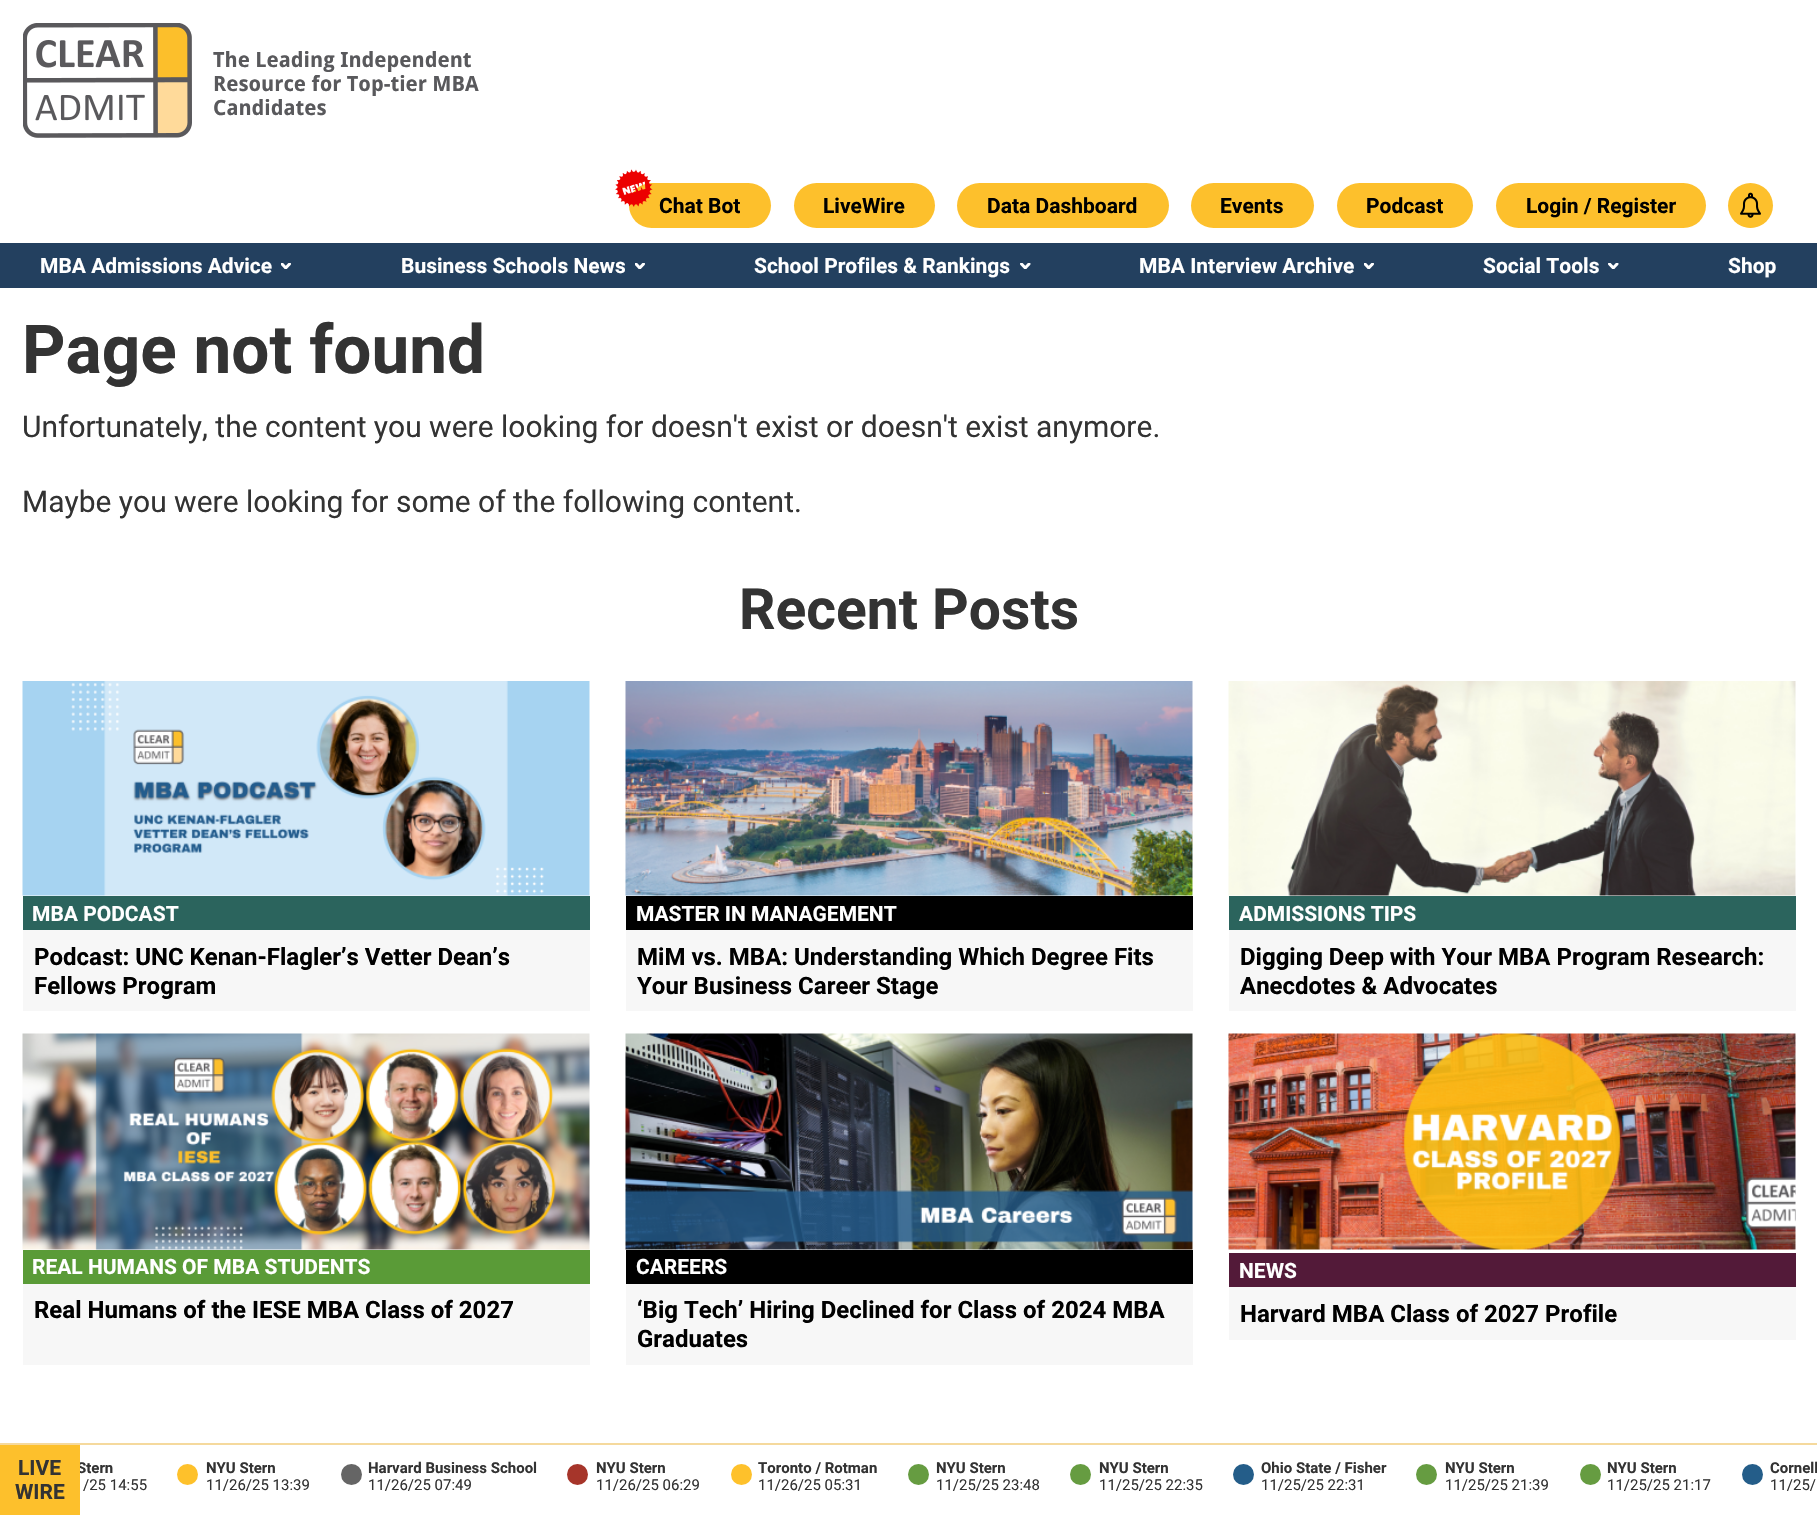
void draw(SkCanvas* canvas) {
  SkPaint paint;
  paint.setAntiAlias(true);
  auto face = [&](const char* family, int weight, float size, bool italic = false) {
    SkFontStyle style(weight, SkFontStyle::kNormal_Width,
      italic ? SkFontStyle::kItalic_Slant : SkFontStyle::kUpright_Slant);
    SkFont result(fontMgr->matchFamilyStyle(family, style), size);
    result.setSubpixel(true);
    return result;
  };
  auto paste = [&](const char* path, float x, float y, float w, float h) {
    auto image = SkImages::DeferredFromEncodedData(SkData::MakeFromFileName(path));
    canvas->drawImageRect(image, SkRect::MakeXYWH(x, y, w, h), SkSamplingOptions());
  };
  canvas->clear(0xffffffff);
  paste("img/1.png", 23, 23, 169, 115);
  paint.setColor(0xfffdc02c);
  canvas->drawRoundRect(SkRect::MakeXYWH(629, 183, 142, 45), 22.5f, 22.5f, paint);
  paste("img/2.png", 615, 169, 38, 38);
  canvas->drawRoundRect(SkRect::MakeXYWH(794, 183, 141, 45), 22.5f, 22.5f, paint);
  canvas->drawRoundRect(SkRect::MakeXYWH(957, 183, 212, 45), 22.5f, 22.5f, paint);
  canvas->drawRoundRect(SkRect::MakeXYWH(1191, 183, 123, 45), 22.5f, 22.5f, paint);
  canvas->drawRoundRect(SkRect::MakeXYWH(1337, 183, 136, 45), 22.5f, 22.5f, paint);
  canvas->drawRoundRect(SkRect::MakeXYWH(1496, 183, 210, 45), 22.5f, 22.5f, paint);
  canvas->drawCircle(1750.5f, 205.5f, 22.5f, paint);
  paste("img/3.png", 1737, 192, 27, 36);
  paint.setColor(0xff23405f);
  canvas->drawRect(SkRect::MakeXYWH(0, 243, 1817, 45), paint);
  paste("img/4.png", 281, 263, 10, 6);
  paste("img/4.png", 635, 263, 10, 6);
  paste("img/5.png", 1020, 263, 11, 6);
  paste("img/4.png", 1364, 263, 10, 6);
  paste("img/5.png", 1608, 263, 11, 6);
  paste("img/6.png", 22, 681, 568, 215);
  paint.setColor(0xff2b645d);
  canvas->drawRect(SkRect::MakeXYWH(23, 896, 567, 34), paint);
  paint.setColor(0xfff7f7f7);
  canvas->drawRect(SkRect::MakeXYWH(23, 930, 567, 81), paint);
  paste("img/7.png", 625, 681, 568, 215);
  paint.setColor(0xff000000);
  canvas->drawRect(SkRect::MakeXYWH(626, 896, 567, 34), paint);
  paint.setColor(0xfff7f7f7);
  canvas->drawRect(SkRect::MakeXYWH(626, 930, 567, 81), paint);
  paste("img/8.png", 1228, 681, 568, 215);
  paint.setColor(0xff2b645d);
  canvas->drawRect(SkRect::MakeXYWH(1229, 896, 567, 34), paint);
  paint.setColor(0xfff7f7f7);
  canvas->drawRect(SkRect::MakeXYWH(1229, 930, 567, 81), paint);
  paste("img/9.png", 22, 1033, 568, 217);
  paint.setColor(0xff5a9b37);
  canvas->drawRect(SkRect::MakeXYWH(23, 1250, 567, 34), paint);
  paint.setColor(0xfff7f7f7);
  canvas->drawRect(SkRect::MakeXYWH(23, 1284, 567, 81), paint);
  paste("img/10.png", 625, 1033, 568, 217);
  paint.setColor(0xff000000);
  canvas->drawRect(SkRect::MakeXYWH(626, 1250, 567, 34), paint);
  paint.setColor(0xfff7f7f7);
  canvas->drawRect(SkRect::MakeXYWH(626, 1284, 567, 81), paint);
  paste("img/11.png", 1228, 1033, 568, 217);
  {
    const struct { float x, y, w, h; SkColor color; } items[] = {
      {1229, 1253, 567, 34, 0xff531a39},
      {1229, 1287, 567, 53, 0xfff7f7f7},
      {0, 1443, 1817, 2, 0xfff5d99d},
    };
    for (auto [x, y, w, h, color] : items) {
      paint.setColor(color);
      canvas->drawRect(SkRect::MakeXYWH(x, y, w, h), paint);
    }
  }
  paint.setColor(0xfffec12b);
  canvas->drawCircle(187.5f, 1474.5f, 10.5f, paint);
  paint.setColor(0xff656565);
  canvas->drawCircle(351.5f, 1474.5f, 10.5f, paint);
  paint.setColor(0xffa6352a);
  canvas->drawCircle(577.5f, 1474.5f, 10.5f, paint);
  paint.setColor(0xfffec12b);
  canvas->drawCircle(741.5f, 1474.5f, 10.5f, paint);
  paint.setColor(0xff669c41);
  canvas->drawCircle(918.5f, 1474.5f, 10.5f, paint);
  canvas->drawCircle(1080.5f, 1474.5f, 10.5f, paint);
  paint.setColor(0xff245d89);
  canvas->drawCircle(1243.5f, 1474.5f, 10.5f, paint);
  paint.setColor(0xff669c41);
  canvas->drawCircle(1426.5f, 1474.5f, 10.5f, paint);
  canvas->drawCircle(1590.5f, 1474.5f, 10.5f, paint);
  paint.setColor(0xff245d89);
  canvas->drawCircle(1752.5f, 1474.5f, 10.5f, paint);
  auto f0 = face("Droid Sans", 700, 21);
  paint.setColor(0xff59595c);
  {
    const struct { const char* s; float x, y; } items[] = {
      {"The Leading Independent", 213, 67},
      {"Resource for Top-tier MBA", 213, 91},
      {"Candidates", 213, 115},
    };
    for (auto [s, x, y] : items) {
      canvas->drawString(s, x, y, f0, paint);
    }
  }
  auto f1 = face("Roboto", 700, 21);
  paint.setColor(0xff000000);
  {
    const struct { const char* s; float x, y; } items[] = {
      {"Chat Bot", 659, 213},
      {"LiveWire", 823, 213},
      {"Data Dashboard", 987, 213},
      {"Events", 1220, 213},
      {"Podcast", 1366, 213},
      {"Login / Register", 1526, 213},
    };
    for (auto [s, x, y] : items) {
      canvas->drawString(s, x, y, f1, paint);
    }
  }
  paint.setColor(0xffffffff);
  {
    const struct { const char* s; float x, y; } items[] = {
      {"MBA Admissions Advice", 40, 273},
      {"Business Schools News", 401, 273},
      {"School Profiles & Rankings", 754, 273},
      {"MBA Interview Archive", 1139, 273},
      {"Social Tools", 1483, 273},
      {"Shop", 1728, 273},
    };
    for (auto [s, x, y] : items) {
      canvas->drawString(s, x, y, f1, paint);
    }
  }
  auto f2 = face("Roboto", 700, 67.5f);
  paint.setColor(0xff333333);
  canvas->drawString("Page not found", 22, 373, f2, paint);
  auto f3 = face("Roboto", 400, 30);
  canvas->drawString("Unfortunately, the content you were looking for doesn't exist or doesn't exist anymore.", 22, 437, f3, paint);
  canvas->drawString("Maybe you were looking for some of the following content.", 22, 512, f3, paint);
  auto f4 = face("Roboto", 700, 57);
  canvas->drawString("Recent Posts", 739, 629, f4, paint);
  paint.setColor(0xffffffff);
  canvas->drawString("MBA PODCAST", 32, 921, f1, paint);
  auto f5 = face("Roboto", 700, 24);
  paint.setColor(0xff000000);
  canvas->drawString("Podcast: UNC Kenan-Flagler’s Vetter Dean’s", 34, 965, f5, paint);
  canvas->drawString("Fellows Program", 34, 994, f5, paint);
  paint.setColor(0xffffffff);
  canvas->drawString("MASTER IN MANAGEMENT", 636, 921, f1, paint);
  paint.setColor(0xff000000);
  canvas->drawString("MiM vs. MBA: Understanding Which Degree Fits", 637, 965, f5, paint);
  canvas->drawString("Your Business Career Stage", 637, 994, f5, paint);
  paint.setColor(0xffffffff);
  canvas->drawString("ADMISSIONS TIPS", 1239, 921, f1, paint);
  paint.setColor(0xff000000);
  canvas->drawString("Digging Deep with Your MBA Program Research:", 1240, 965, f5, paint);
  canvas->drawString("Anecdotes & Advocates", 1240, 994, f5, paint);
  paint.setColor(0xffffffff);
  canvas->drawString("REAL HUMANS OF MBA STUDENTS", 32, 1274, f1, paint);
  paint.setColor(0xff000000);
  canvas->drawString("Real Humans of the IESE MBA Class of 2027", 34, 1318, f5, paint);
  paint.setColor(0xffffffff);
  canvas->drawString("CAREERS", 636, 1274, f1, paint);
  paint.setColor(0xff000000);
  canvas->drawString("‘Big Tech’ Hiring Declined for Class of 2024 MBA", 637, 1318, f5, paint);
  canvas->drawString("Graduates", 637, 1347, f5, paint);
  paint.setColor(0xffffffff);
  canvas->drawString("NEWS", 1239, 1278, f1, paint);
  paint.setColor(0xff000000);
  canvas->drawString("Harvard MBA Class of 2027 Profile", 1240, 1322, f5, paint);
  auto f6 = face("Roboto", 700, 15);
  paint.setColor(0xff333333);
  canvas->drawString("Stern", 77, 1473, f6, paint);
  paint.setColor(0xfffdc02c);
  canvas->drawRect(SkRect::MakeXYWH(0, 1445, 80, 70), paint);
  paint.setColor(0xff333333);
  canvas->drawString("WIRE", 15, 1499, f1, paint);
  canvas->drawString("LIVE", 18, 1475, f1, paint);
  auto f7 = face("Roboto", 400, 15);
  canvas->drawString("/25 14:55", 83, 1490, f7, paint);
  canvas->drawString("NYU Stern", 206, 1473, f6, paint);
  canvas->drawString("11/26/25 13:39", 206, 1490, f7, paint);
  canvas->drawString("Harvard Business School", 368, 1473, f6, paint);
  canvas->drawString("11/26/25 07:49", 368, 1490, f7, paint);
  canvas->drawString("NYU Stern", 596, 1473, f6, paint);
  canvas->drawString("11/26/25 06:29", 596, 1490, f7, paint);
  canvas->drawString("Toronto / Rotman", 758, 1473, f6, paint);
  canvas->drawString("11/26/25 05:31", 758, 1490, f7, paint);
  canvas->drawString("NYU Stern", 936, 1473, f6, paint);
  canvas->drawString("11/25/25 23:48", 936, 1490, f7, paint);
  canvas->drawString("NYU Stern", 1099, 1473, f6, paint);
  canvas->drawString("11/25/25 22:35", 1099, 1490, f7, paint);
  canvas->drawString("Ohio State / Fisher", 1261, 1473, f6, paint);
  canvas->drawString("11/25/25 22:31", 1261, 1490, f7, paint);
  canvas->drawString("NYU Stern", 1445, 1473, f6, paint);
  canvas->drawString("11/25/25 21:39", 1445, 1490, f7, paint);
  canvas->drawString("NYU Stern", 1607, 1473, f6, paint);
  canvas->drawString("11/25/25 21:17", 1607, 1490, f7, paint);
  canvas->drawString("Cornell", 1770, 1473, f6, paint);
  canvas->drawString("11/25/", 1770, 1490, f7, paint);
}
